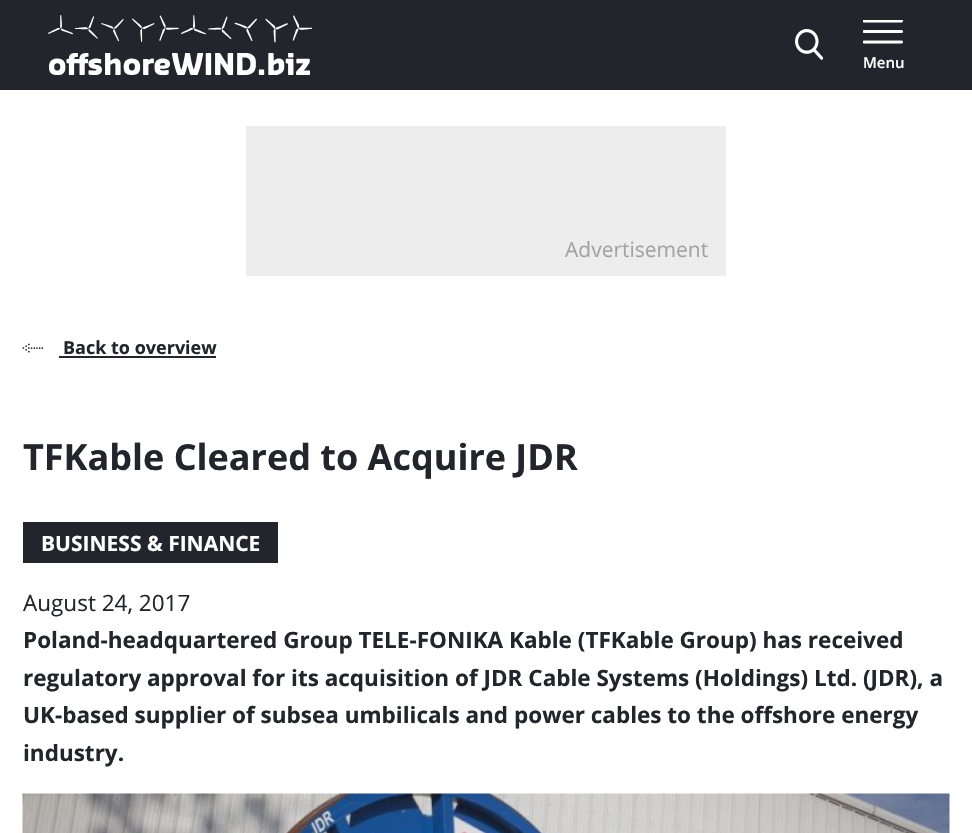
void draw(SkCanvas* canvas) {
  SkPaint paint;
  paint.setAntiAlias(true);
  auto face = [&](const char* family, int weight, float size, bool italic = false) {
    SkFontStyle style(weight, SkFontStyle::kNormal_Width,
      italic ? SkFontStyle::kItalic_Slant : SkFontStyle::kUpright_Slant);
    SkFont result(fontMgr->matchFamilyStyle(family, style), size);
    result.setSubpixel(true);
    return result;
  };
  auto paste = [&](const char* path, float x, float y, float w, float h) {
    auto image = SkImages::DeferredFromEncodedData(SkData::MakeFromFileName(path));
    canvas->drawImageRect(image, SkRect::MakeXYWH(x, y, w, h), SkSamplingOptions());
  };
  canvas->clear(0xffffffff);
  paint.setColor(0xff23252c);
  canvas->drawRect(SkRect::MakeXYWH(0, 0, 972, 90), paint);
  paste("img/1.png", 48, 15, 264, 60);
  paste("img/2.png", 795, 29, 29, 31);
  paste("img/3.png", 863, 20, 40, 24);
  paint.setColor(0xffededed);
  canvas->drawRect(SkRect::MakeXYWH(246, 126, 480, 150), paint);
  paste("img/4.png", 22, 343, 22, 10);
  paint.setColor(0xff23252c);
  canvas->drawRect(SkRect::MakeXYWH(59, 356, 157, 2), paint);
  canvas->drawRect(SkRect::MakeXYWH(23, 522, 255, 41), paint);
  paste("img/5.png", 22, 793, 928, 40);
  auto f0 = face("Open Sans", 600, 15);
  paint.setColor(0xffffffff);
  canvas->drawString("Menu", 863, 68, f0, paint);
  auto f1 = face("Open Sans", 400, 21);
  paint.setColor(0xffa3a3a3);
  canvas->drawString("Advertisement", 565, 257, f1, paint);
  auto f2 = face("Open Sans", 700, 18);
  paint.setColor(0xff23252c);
  canvas->drawString("Back to overview", 63, 354, f2, paint);
  auto f3 = face("Open Sans", 700, 36);
  canvas->drawString("TFKable Cleared to Acquire JDR", 23, 470, f3, paint);
  auto f4 = face("Open Sans", 700, 21);
  paint.setColor(0xffffffff);
  canvas->drawString("BUSINESS & FINANCE", 41, 551, f4, paint);
  auto f5 = face("Open Sans", 400, 22.5f);
  paint.setColor(0xff23252c);
  canvas->drawString("August 24, 2017", 23, 611, f5, paint);
  auto f6 = face("Open Sans", 700, 22.5f);
  {
    const struct { const char* s; float x, y; } items[] = {
      {"Poland-headquartered Group TELE-FONIKA Kable (TFKable Group) has received", 23, 648},
      {"regulatory approval for its acquisition of JDR Cable Systems (Holdings) Ltd. (JDR), a", 23, 686},
      {"UK-based supplier of subsea umbilicals and power cables to the offshore energy", 23, 723},
      {"industry.", 23, 761},
    };
    for (auto [s, x, y] : items) {
      canvas->drawString(s, x, y, f6, paint);
    }
  }
}
